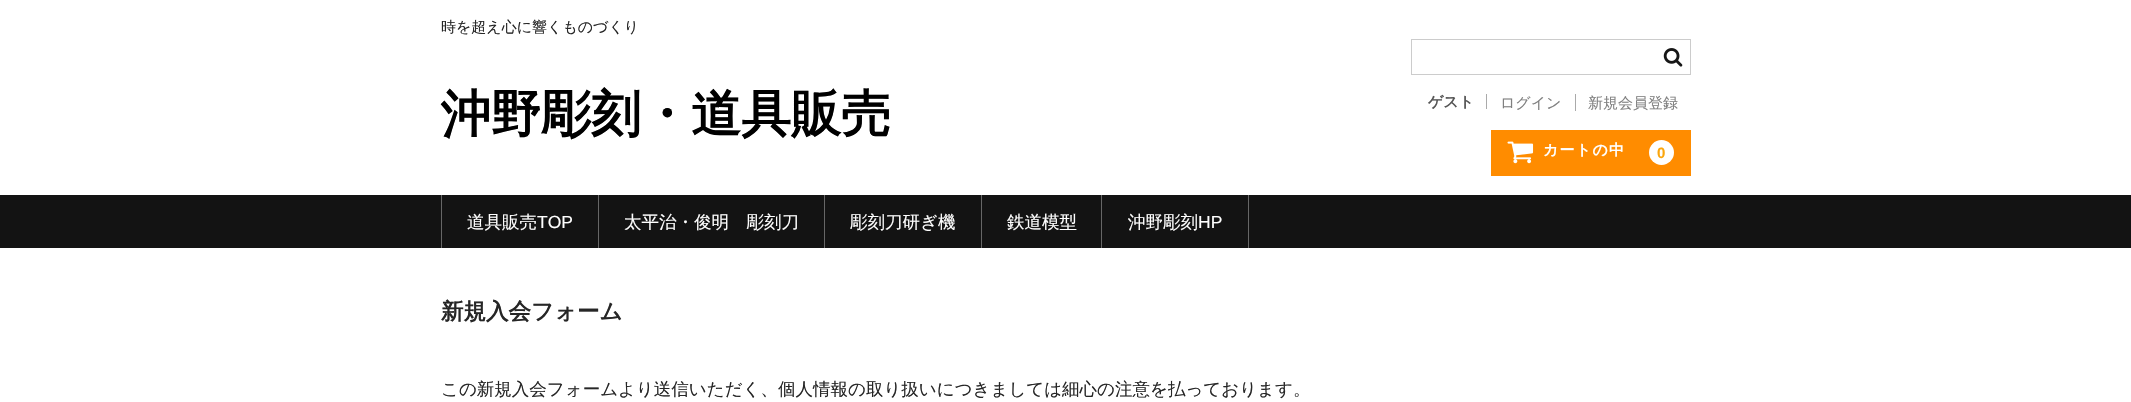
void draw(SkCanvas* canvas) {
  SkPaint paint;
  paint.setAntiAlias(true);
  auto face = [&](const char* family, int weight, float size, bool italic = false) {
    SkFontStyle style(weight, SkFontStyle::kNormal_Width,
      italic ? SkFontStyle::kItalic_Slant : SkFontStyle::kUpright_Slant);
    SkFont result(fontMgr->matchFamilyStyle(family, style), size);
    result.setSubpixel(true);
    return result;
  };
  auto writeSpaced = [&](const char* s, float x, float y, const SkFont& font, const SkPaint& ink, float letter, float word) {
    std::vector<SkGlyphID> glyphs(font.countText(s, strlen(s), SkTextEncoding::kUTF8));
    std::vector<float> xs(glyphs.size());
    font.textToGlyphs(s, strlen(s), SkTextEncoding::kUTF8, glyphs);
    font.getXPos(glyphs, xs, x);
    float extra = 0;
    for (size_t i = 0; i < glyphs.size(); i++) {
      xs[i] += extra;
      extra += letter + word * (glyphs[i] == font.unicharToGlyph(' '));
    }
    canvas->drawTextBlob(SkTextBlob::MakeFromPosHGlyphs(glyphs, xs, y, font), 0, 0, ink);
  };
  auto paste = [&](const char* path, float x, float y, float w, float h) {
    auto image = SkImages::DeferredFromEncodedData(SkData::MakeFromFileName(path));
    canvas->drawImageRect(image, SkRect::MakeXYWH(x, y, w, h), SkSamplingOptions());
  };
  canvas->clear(0xffffffff);
  paint.setStroke(true);
  paint.setStrokeWidth(1);
  paint.setColor(0xffcccccc);
  canvas->drawRect(SkRect::MakeXYWH(1411.5f, 39.5f, 279, 35), paint);
  paste("img/1.png", 1663, 48, 20, 19);
  paint.setStroke(false);
  {
    const struct { float x, y, w, h; SkColor color; } items[] = {
      {1486, 94, 1, 15, 0xffaaaaaa},
      {1575, 94, 1, 17, 0xffaaaaaa},
      {1491, 130, 200, 46, 0xffff8c00},
    };
    for (auto [x, y, w, h, color] : items) {
      paint.setColor(color);
      canvas->drawRect(SkRect::MakeXYWH(x, y, w, h), paint);
    }
  }
  paste("img/2.png", 1507, 141, 27, 23);
  paint.setColor(0xffffffff);
  canvas->drawCircle(1661.5f, 152.5f, 12.5f, paint);
  {
    const struct { float x, y, w, h; SkColor color; } items[] = {
      {0, 195, 2131, 53, 0xff131313},
      {598, 195, 1, 53, 0xff666666},
      {441, 195, 1, 53, 0xff666666},
      {824, 195, 1, 53, 0xff666666},
      {981, 195, 1, 53, 0xff666666},
      {1101, 195, 1, 53, 0xff666666},
      {1248, 195, 1, 53, 0xff666666},
    };
    for (auto [x, y, w, h, color] : items) {
      paint.setColor(color);
      canvas->drawRect(SkRect::MakeXYWH(x, y, w, h), paint);
    }
  }
  auto f0 = face("WenQuanYi Zen Hei", 500, 15);
  paint.setColor(0xff262626);
  canvas->drawString("時を超え心に響くものづくり", 441, 32, f0, paint);
  auto f1 = face("WenQuanYi Zen Hei", 700, 50);
  paint.setColor(0xff000000);
  canvas->drawString("沖野彫刻・道具販売", 441, 131, f1, paint);
  auto f2 = face("WenQuanYi Zen Hei", 700, 15);
  paint.setColor(0xff565656);
  canvas->drawString("ゲスト", 1428, 107, f2, paint);
  paint.setColor(0xff808080);
  canvas->drawString("ログイン", 1500, 108, f0, paint);
  canvas->drawString("新規会員登録", 1588, 108, f0, paint);
  paint.setColor(0xffffffff);
  writeSpaced("カートの中", 1543, 155, f2, paint, 1.25f, 0);
  auto f3 = face("Liberation Sans", 700, 15);
  paint.setColor(0xfffba60d);
  writeSpaced("0", 1657, 158, f3, paint, 1.25f, 0);
  auto f4 = face("WenQuanYi Zen Hei", 500, 17.5f);
  paint.setColor(0xffffffff);
  canvas->drawString("道具販売", 467, 228, f4, paint);
  auto f5 = face("Liberation Sans", 400, 17.5f);
  canvas->drawString("TOP", 537, 228, f5, paint);
  {
    const struct { const char* s; float x, y; } items[] = {
      {"太平治・俊明　彫刻刀", 624, 228},
      {"彫刻刀研ぎ機", 850, 228},
      {"鉄道模型", 1007, 228},
      {"沖野彫刻", 1128, 228},
    };
    for (auto [s, x, y] : items) {
      canvas->drawString(s, x, y, f4, paint);
    }
  }
  canvas->drawString("HP", 1198, 228, f5, paint);
  auto f6 = face("WenQuanYi Zen Hei", 700, 22.5f);
  paint.setColor(0xff262626);
  canvas->drawString("新規入会フォーム", 441, 319, f6, paint);
  canvas->drawString("この新規入会フォームより送信いただく、個人情報の取り扱いにつきましては細心の注意を払っております。", 441, 395, f4, paint);
}
